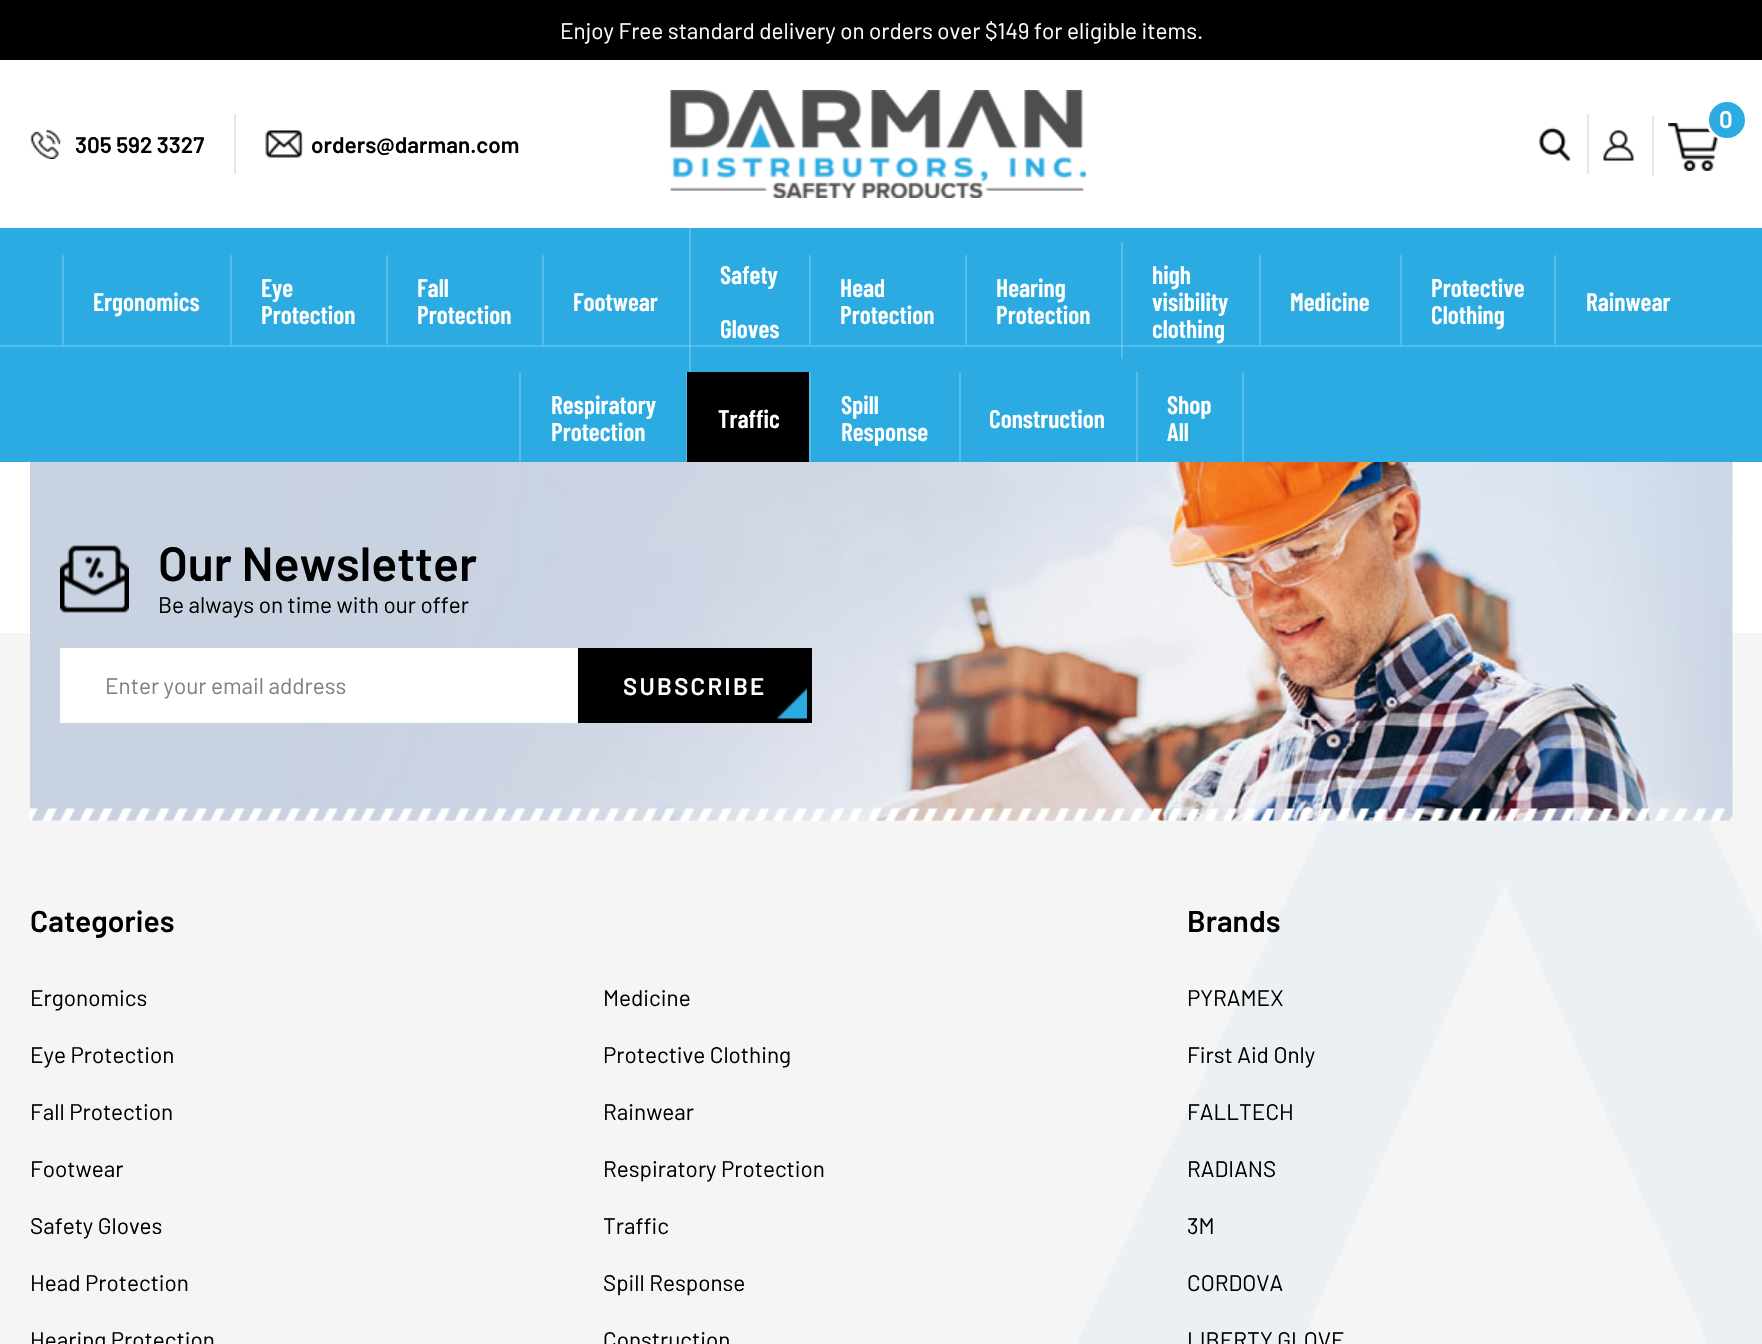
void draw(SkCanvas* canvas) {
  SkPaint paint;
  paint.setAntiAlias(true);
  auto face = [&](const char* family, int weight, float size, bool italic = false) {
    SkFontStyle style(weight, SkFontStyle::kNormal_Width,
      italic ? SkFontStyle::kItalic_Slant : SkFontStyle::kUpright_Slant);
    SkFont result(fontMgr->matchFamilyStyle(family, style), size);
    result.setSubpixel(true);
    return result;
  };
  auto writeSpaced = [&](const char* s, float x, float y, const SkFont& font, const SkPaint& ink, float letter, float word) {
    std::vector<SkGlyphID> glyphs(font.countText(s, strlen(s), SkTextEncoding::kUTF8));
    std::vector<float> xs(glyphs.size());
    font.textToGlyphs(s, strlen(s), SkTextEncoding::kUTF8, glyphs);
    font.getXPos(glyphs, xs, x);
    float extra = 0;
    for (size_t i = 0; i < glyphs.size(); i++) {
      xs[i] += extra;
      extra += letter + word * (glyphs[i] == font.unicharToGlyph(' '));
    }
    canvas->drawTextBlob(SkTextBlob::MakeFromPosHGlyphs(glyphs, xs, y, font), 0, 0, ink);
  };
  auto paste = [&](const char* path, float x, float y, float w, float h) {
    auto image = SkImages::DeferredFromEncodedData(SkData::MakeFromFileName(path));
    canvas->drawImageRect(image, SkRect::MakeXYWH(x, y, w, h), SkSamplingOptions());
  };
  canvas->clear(0xffffffff);
  paint.setColor(0xff000000);
  canvas->drawRect(SkRect::MakeXYWH(0, 0, 1762, 60), paint);
  paste("img/1.png", 670, 90, 416, 108);
  paste("img/2.png", 1539, 127, 32, 34);
  paint.setColor(0xffe6e6e6);
  canvas->drawRect(SkRect::MakeXYWH(1587, 114, 2, 60), paint);
  paste("img/3.png", 1603, 130, 31, 31);
  canvas->drawRect(SkRect::MakeXYWH(1652, 116, 2, 60), paint);
  paste("img/4.png", 1668, 123, 50, 48);
  paint.setColor(0xff2cabe2);
  canvas->drawCircle(1727, 120, 19.5f, paint);
  paint.setStroke(true);
  paint.setStrokeWidth(3);
  paint.setColor(0xffffffff);
  canvas->drawCircle(1727, 120, 19.5f, paint);
  paint.setStroke(false);
  paint.setColor(0xffe6e6e6);
  canvas->drawRect(SkRect::MakeXYWH(234, 114, 2, 60), paint);
  paste("img/5.png", 30, 129, 31, 30);
  paste("img/6.png", 265, 130, 38, 28);
  {
    const struct { float x, y, w, h; SkColor color; } items[] = {
      {0, 228, 1762, 234, 0xff2cabe2},
      {0, 345, 1762, 2, 0xff56bce8},
      {62, 255, 2, 90, 0xff56bce8},
      {230, 255, 2, 90, 0xff56bce8},
      {386, 255, 2, 90, 0xff56bce8},
      {542, 255, 2, 90, 0xff56bce8},
      {689, 228, 2, 144, 0xff56bce8},
      {689, 345, 2, 2, 0xff78c9ed},
      {809, 255, 2, 90, 0xff56bce8},
      {965, 255, 2, 90, 0xff56bce8},
      {1121, 242, 2, 117, 0xff56bce8},
      {1121, 345, 2, 2, 0xff78c9ed},
      {1259, 255, 2, 90, 0xff56bce8},
      {1400, 255, 2, 90, 0xff56bce8},
      {1554, 255, 2, 90, 0xff56bce8},
      {519, 372, 2, 90, 0xff56bce8},
      {686, 372, 1, 90, 0xff56bce8},
      {687, 372, 122, 90, 0xff000000},
      {809, 372, 2, 90, 0xff56bce8},
      {959, 372, 2, 90, 0xff56bce8},
      {1242, 372, 2, 90, 0xff56bce8},
      {1136, 372, 2, 90, 0xff56bce8},
      {0, 633, 1762, 711, 0xfff5f5f5},
    };
    for (auto [x, y, w, h, color] : items) {
      paint.setColor(color);
      canvas->drawRect(SkRect::MakeXYWH(x, y, w, h), paint);
    }
  }
  paste("img/11.png", 1077, 820, 685, 524);
  paste("img/7.png", 30, 462, 1703, 359);
  paste("img/8.png", 60, 545, 69, 68);
  paint.setColor(0xffffffff);
  canvas->drawRect(SkRect::MakeXYWH(60, 648, 518, 75), paint);
  paint.setColor(0xff000000);
  canvas->drawRect(SkRect::MakeXYWH(578, 648, 234, 75), paint);
  paste("img/9.png", 777, 688, 30, 31);
  paste("img/10.png", 30, 808, 1703, 13);
  auto f0 = face("Barlow", 400, 22.5f);
  paint.setColor(0xffffffff);
  canvas->drawString("Enjoy Free standard delivery on orders over $149 for eligible items.", 560, 39, f0, paint);
  auto f1 = face("Barlow", 600, 24);
  canvas->drawString("0", 1719, 128, f1, paint);
  auto f2 = face("Barlow", 600, 22.5f);
  paint.setColor(0xff000000);
  canvas->drawString("305 592 3327", 75, 153, f2, paint);
  canvas->drawString("orders@darman.com", 311, 153, f2, paint);
  auto f3 = face("Barlow Condensed", 600, 25.5f);
  paint.setColor(0xffffffff);
  {
    const struct { const char* s; float x, y; } items[] = {
      {"Ergonomics", 93, 311},
      {"Eye", 261, 297},
      {"Protection", 261, 324},
      {"Fall", 417, 297},
      {"Protection", 417, 324},
      {"Footwear", 573, 311},
      {"Safety", 720, 284},
      {"Gloves", 720, 338},
      {"Head", 840, 297},
      {"Protection", 840, 324},
      {"Hearing", 996, 297},
      {"Protection", 996, 324},
      {"high", 1152, 284},
      {"visibility", 1152, 311},
      {"clothing", 1152, 338},
      {"Medicine", 1290, 311},
      {"Protective", 1431, 297},
      {"Clothing", 1431, 324},
      {"Rainwear", 1586, 311},
      {"Respiratory", 551, 414},
      {"Protection", 551, 441},
      {"Traffic", 718, 428},
      {"Spill", 841, 414},
      {"Response", 841, 441},
      {"Construction", 989, 428},
      {"Shop", 1167, 414},
      {"All", 1167, 441},
    };
    for (auto [s, x, y] : items) {
      canvas->drawString(s, x, y, f3, paint);
    }
  }
  auto f4 = face("Barlow", 600, 48);
  paint.setColor(0xff000000);
  canvas->drawString("Our Newsletter", 158, 581, f4, paint);
  canvas->drawString("Be always on time with our offer", 158, 613, f0, paint);
  paint.setColor(0xff808080);
  canvas->drawString("Enter your email address", 105, 694, f0, paint);
  paint.setColor(0xffffffff);
  writeSpaced("SUBSCRIBE", 623, 695, f1, paint, 2.25f, 0);
  auto f5 = face("Barlow", 600, 30);
  paint.setColor(0xff000000);
  canvas->drawString("Categories", 30, 932, f5, paint);
  {
    const struct { const char* s; float x, y; } items[] = {
      {"Ergonomics", 30, 1006},
      {"Medicine", 603, 1006},
      {"Eye Protection", 30, 1063},
      {"Protective Clothing", 603, 1063},
      {"Fall Protection", 30, 1120},
      {"Rainwear", 603, 1120},
      {"Footwear", 30, 1177},
      {"Respiratory Protection", 603, 1177},
      {"Safety Gloves", 30, 1234},
      {"Traffic", 603, 1234},
      {"Head Protection", 30, 1291},
      {"Spill Response", 603, 1291},
      {"Hearing Protection", 30, 1348},
      {"Construction", 603, 1348},
    };
    for (auto [s, x, y] : items) {
      canvas->drawString(s, x, y, f0, paint);
    }
  }
  canvas->drawString("Brands", 1187, 932, f5, paint);
  {
    const struct { const char* s; float x, y; } items[] = {
      {"PYRAMEX", 1187, 1006},
      {"First Aid Only", 1187, 1063},
      {"FALLTECH", 1187, 1120},
      {"RADIANS", 1187, 1177},
      {"3M", 1187, 1234},
      {"CORDOVA", 1187, 1291},
      {"LIBERTY GLOVE", 1187, 1348},
    };
    for (auto [s, x, y] : items) {
      canvas->drawString(s, x, y, f0, paint);
    }
  }
}
